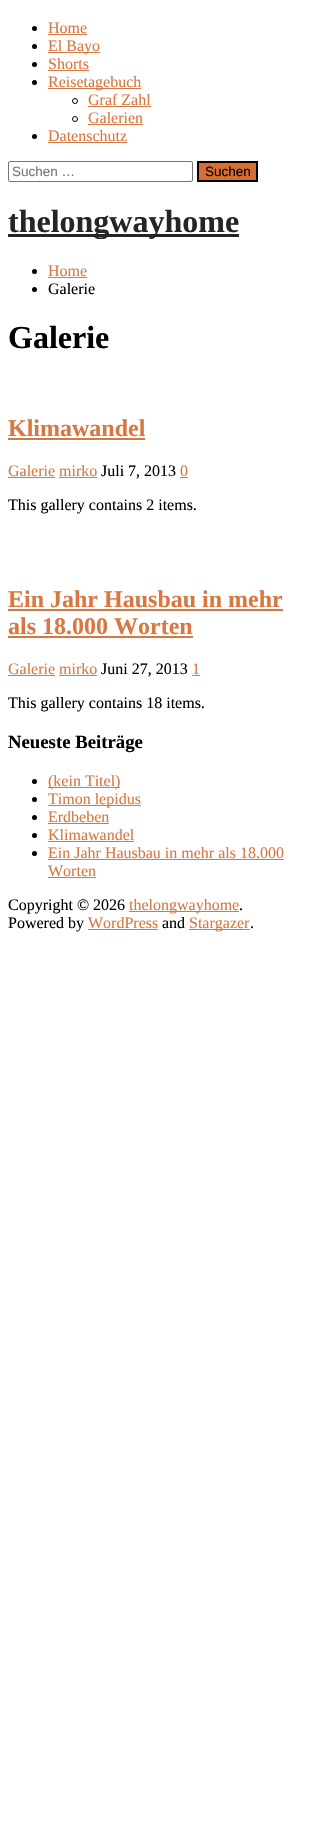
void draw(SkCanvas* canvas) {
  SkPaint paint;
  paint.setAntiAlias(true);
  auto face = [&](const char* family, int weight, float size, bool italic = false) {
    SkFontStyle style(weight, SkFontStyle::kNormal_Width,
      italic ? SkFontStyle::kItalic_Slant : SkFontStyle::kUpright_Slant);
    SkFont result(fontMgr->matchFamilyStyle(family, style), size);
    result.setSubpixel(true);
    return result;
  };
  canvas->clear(0xffffffff);
  paint.setColor(0xff000000);
  canvas->drawCircle(34.5f, 28.5f, 2.5f, paint);
  paint.setColor(0xffd97740);
  canvas->drawRect(SkRect::MakeXYWH(48, 34, 39, 1), paint);
  paint.setColor(0xff000000);
  canvas->drawCircle(34.5f, 46.5f, 2.5f, paint);
  paint.setColor(0xffd97740);
  canvas->drawRect(SkRect::MakeXYWH(48, 52, 52, 1), paint);
  paint.setColor(0xff000000);
  canvas->drawCircle(34.5f, 64.5f, 2.5f, paint);
  paint.setColor(0xffd97740);
  canvas->drawRect(SkRect::MakeXYWH(48, 70, 41, 1), paint);
  paint.setColor(0xff000000);
  canvas->drawCircle(34.5f, 82.5f, 2.5f, paint);
  paint.setColor(0xffd97740);
  canvas->drawRect(SkRect::MakeXYWH(48, 88, 93, 1), paint);
  paint.setStroke(true);
  paint.setStrokeWidth(1);
  paint.setColor(0xff000000);
  canvas->drawCircle(75, 101, 2.5f, paint);
  paint.setStroke(false);
  paint.setColor(0xffd97740);
  canvas->drawRect(SkRect::MakeXYWH(88, 106, 63, 1), paint);
  paint.setStroke(true);
  paint.setColor(0xff000000);
  canvas->drawCircle(75, 119, 2.5f, paint);
  paint.setStroke(false);
  paint.setColor(0xffd97740);
  canvas->drawRect(SkRect::MakeXYWH(88, 124, 55, 1), paint);
  paint.setColor(0xff000000);
  canvas->drawCircle(34.5f, 136.5f, 2.5f, paint);
  paint.setColor(0xffd97740);
  canvas->drawRect(SkRect::MakeXYWH(48, 142, 79, 1), paint);
  paint.setStroke(true);
  paint.setColor(0xff767676);
  canvas->drawRoundRect(SkRect::MakeXYWH(8.5f, 161.5f, 184, 20), 1.5f, 1.5f, paint);
  paint.setStroke(false);
  paint.setColor(0xffd66e33);
  canvas->drawRect(SkRect::MakeXYWH(198, 162, 59, 19), paint);
  paint.setStroke(true);
  paint.setStrokeWidth(2);
  paint.setColor(0xff000000);
  canvas->drawRect(SkRect::MakeXYWH(198, 162, 59, 19), paint);
  paint.setStroke(false);
  paint.setColor(0xff252525);
  canvas->drawRect(SkRect::MakeXYWH(8, 234, 231, 3), paint);
  paint.setColor(0xff000000);
  canvas->drawCircle(34.5f, 271.5f, 2.5f, paint);
  paint.setColor(0xffd97740);
  canvas->drawRect(SkRect::MakeXYWH(48, 277, 39, 1), paint);
  paint.setColor(0xff000000);
  canvas->drawCircle(34.5f, 289.5f, 2.5f, paint);
  {
    const struct { float x, y, w, h; SkColor color; } items[] = {
      {8, 438, 137, 2, 0xffd97740},
      {8, 477, 47, 1, 0xffd97740},
      {180, 477, 8, 1, 0xffd97740},
      {59, 477, 38, 1, 0xffd97740},
      {8, 609, 275, 2, 0xffd97740},
      {8, 636, 185, 2, 0xffd97740},
      {8, 675, 47, 1, 0xffd97740},
      {192, 675, 8, 1, 0xffd97740},
      {59, 675, 38, 1, 0xffd97740},
    };
    for (auto [x, y, w, h, color] : items) {
      paint.setColor(color);
      canvas->drawRect(SkRect::MakeXYWH(x, y, w, h), paint);
    }
  }
  paint.setColor(0xff000000);
  canvas->drawCircle(34.5f, 781.5f, 2.5f, paint);
  paint.setColor(0xffd97740);
  canvas->drawRect(SkRect::MakeXYWH(48, 787, 72, 1), paint);
  paint.setColor(0xff000000);
  canvas->drawCircle(34.5f, 799.5f, 2.5f, paint);
  paint.setColor(0xffd97740);
  canvas->drawRect(SkRect::MakeXYWH(48, 805, 93, 1), paint);
  paint.setColor(0xff000000);
  canvas->drawCircle(34.5f, 817.5f, 2.5f, paint);
  paint.setColor(0xffd97740);
  canvas->drawRect(SkRect::MakeXYWH(48, 823, 61, 1), paint);
  paint.setColor(0xff000000);
  canvas->drawCircle(34.5f, 835.5f, 2.5f, paint);
  paint.setColor(0xffd97740);
  canvas->drawRect(SkRect::MakeXYWH(48, 841, 86, 1), paint);
  paint.setColor(0xff000000);
  canvas->drawCircle(34.5f, 853.5f, 2.5f, paint);
  {
    const struct { float x, y, w, h; SkColor color; } items[] = {
      {48, 859, 236, 1, 0xffd97740},
      {48, 877, 48, 1, 0xffd97740},
      {129, 911, 110, 1, 0xffd97740},
      {88, 929, 70, 1, 0xffd97740},
      {189, 929, 61, 1, 0xffd97740},
    };
    for (auto [x, y, w, h, color] : items) {
      paint.setColor(color);
      canvas->drawRect(SkRect::MakeXYWH(x, y, w, h), paint);
    }
  }
  auto f0 = face("Liberation Serif", 400, 16);
  {
    const struct { const char* s; float x, y; } items[] = {
      {"Home", 48, 33},
      {"El Bayo", 48, 51},
      {"Shorts", 48, 69},
      {"Reisetagebuch", 48, 87},
      {"Graf Zahl", 88, 105},
      {"Galerien", 88, 123},
      {"Datenschutz", 48, 141},
    };
    for (auto [s, x, y] : items) {
      canvas->drawString(s, x, y, f0, paint);
    }
  }
  auto f1 = face("Liberation Sans", 400, 13.5f);
  paint.setColor(0xff757575);
  canvas->drawString("Suchen …", 12, 176, f1, paint);
  paint.setColor(0xff000000);
  canvas->drawString("Suchen", 205, 176, f1, paint);
  auto f2 = face("Liberation Serif", 700, 32);
  paint.setColor(0xff252525);
  canvas->drawString("thelongwayhome", 8, 232, f2, paint);
  paint.setColor(0xffd97740);
  canvas->drawString("Home", 48, 276, f0, paint);
  paint.setColor(0xff000000);
  canvas->drawString("Galerie", 48, 294, f0, paint);
  canvas->drawString("Galerie", 8, 348, f2, paint);
  auto f3 = face("Liberation Serif", 700, 24);
  paint.setColor(0xffd97740);
  canvas->drawString("Klimawandel", 8, 436, f3, paint);
  canvas->drawString("Galerie mirko", 8, 476, f0, paint);
  paint.setColor(0xff000000);
  canvas->drawString("Juli 7, 2013", 101, 476, f0, paint);
  paint.setColor(0xffd97740);
  canvas->drawString("0", 180, 476, f0, paint);
  paint.setColor(0xff000000);
  canvas->drawString("This gallery contains 2 items.", 8, 510, f0, paint);
  paint.setColor(0xffd97740);
  canvas->drawString("Ein Jahr Hausbau in mehr", 8, 607, f3, paint);
  canvas->drawString("als 18.000 Worten", 8, 634, f3, paint);
  canvas->drawString("Galerie mirko", 8, 674, f0, paint);
  paint.setColor(0xff000000);
  canvas->drawString("Juni 27, 2013", 101, 674, f0, paint);
  paint.setColor(0xffd97740);
  canvas->drawString("1", 192, 674, f0, paint);
  paint.setColor(0xff000000);
  canvas->drawString("This gallery contains 18 items.", 8, 708, f0, paint);
  auto f4 = face("Liberation Serif", 700, 18.75f);
  canvas->drawString("Neueste Beiträge", 8, 748, f4, paint);
  paint.setColor(0xffd97740);
  {
    const struct { const char* s; float x, y; } items[] = {
      {"(kein Titel)", 48, 786},
      {"Timon lepidus", 48, 804},
      {"Erdbeben", 48, 822},
      {"Klimawandel", 48, 840},
      {"Ein Jahr Hausbau in mehr als 18.000", 48, 858},
      {"Worten", 48, 876},
    };
    for (auto [s, x, y] : items) {
      canvas->drawString(s, x, y, f0, paint);
    }
  }
  paint.setColor(0xff000000);
  canvas->drawString("Copyright © 2026", 8, 910, f0, paint);
  paint.setColor(0xffd97740);
  canvas->drawString("thelongwayhome", 129, 910, f0, paint);
  paint.setColor(0xff000000);
  canvas->drawString(".", 239, 910, f0, paint);
  canvas->drawString("Powered by", 8, 928, f0, paint);
  paint.setColor(0xffd97740);
  canvas->drawString("WordPress", 88, 928, f0, paint);
  paint.setColor(0xff000000);
  canvas->drawString("and", 162, 928, f0, paint);
  paint.setColor(0xffd97740);
  canvas->drawString("Stargazer", 189, 928, f0, paint);
  paint.setColor(0xff000000);
  canvas->drawString(".", 250, 928, f0, paint);
}
